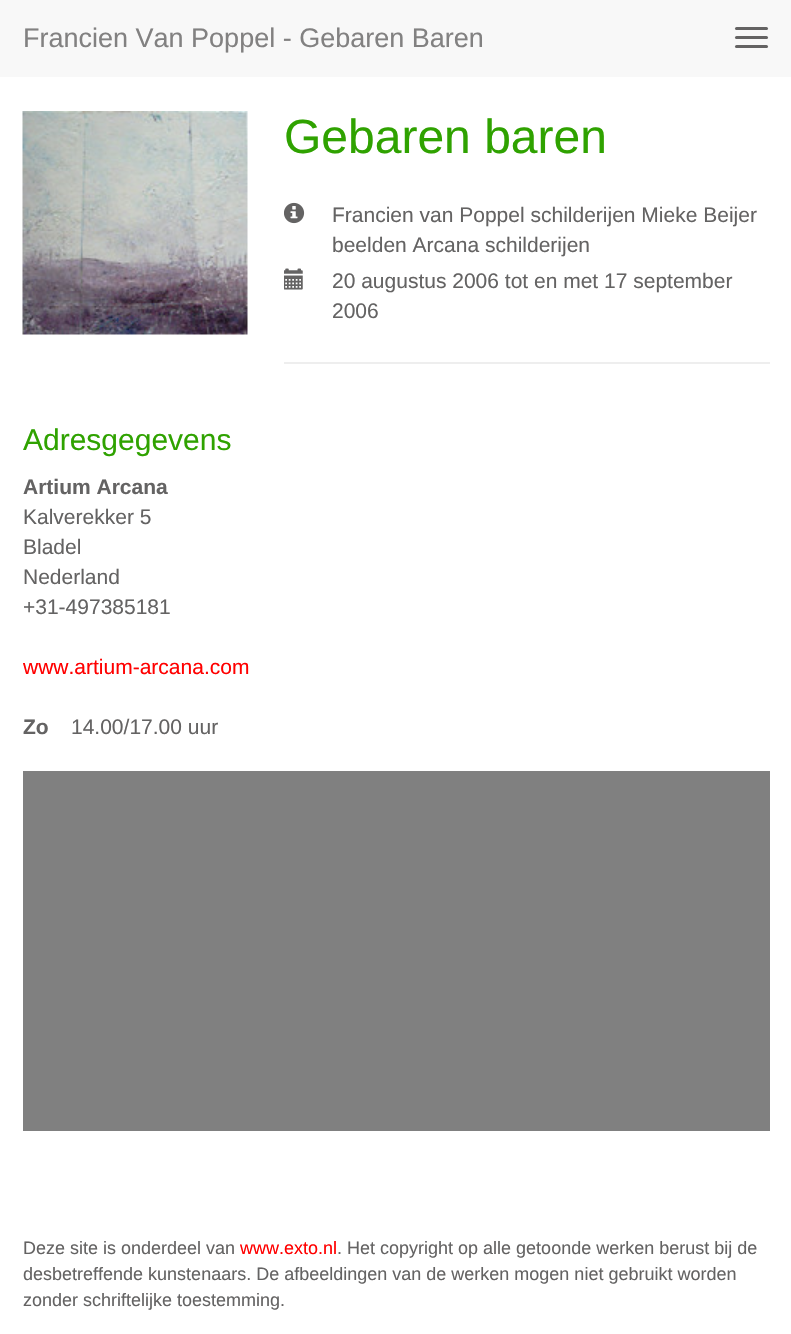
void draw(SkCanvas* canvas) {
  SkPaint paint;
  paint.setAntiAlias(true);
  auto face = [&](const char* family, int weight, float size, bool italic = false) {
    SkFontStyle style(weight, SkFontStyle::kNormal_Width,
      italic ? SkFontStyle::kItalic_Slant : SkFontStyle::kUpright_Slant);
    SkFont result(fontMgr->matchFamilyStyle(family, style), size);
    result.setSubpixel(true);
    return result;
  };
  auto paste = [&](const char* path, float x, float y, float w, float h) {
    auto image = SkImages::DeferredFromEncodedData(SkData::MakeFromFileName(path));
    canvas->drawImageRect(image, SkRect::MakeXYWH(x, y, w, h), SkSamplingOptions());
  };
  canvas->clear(0xffffffff);
  paint.setColor(0xfff8f8f8);
  canvas->drawRect(SkRect::MakeXYWH(0, 0, 791, 77), paint);
  paint.setColor(0xff646363);
  canvas->drawRoundRect(SkRect::MakeXYWH(735, 27, 33, 3), 1.5f, 1.5f, paint);
  canvas->drawRoundRect(SkRect::MakeXYWH(735, 36, 33, 3), 1.5f, 1.5f, paint);
  canvas->drawRoundRect(SkRect::MakeXYWH(735, 45, 33, 3), 1.5f, 1.5f, paint);
  paste("img/1.png", 22, 111, 226, 224);
  paste("img/2.png", 284, 202, 21, 22);
  paste("img/3.png", 284, 268, 19, 22);
  paint.setColor(0xffeeeeee);
  canvas->drawRect(SkRect::MakeXYWH(284, 362, 486, 2), paint);
  paint.setColor(0xff808080);
  canvas->drawRect(SkRect::MakeXYWH(23, 771, 747, 360), paint);
  auto f0 = face("Liberation Sans", 400, 27);
  paint.setColor(0xff828181);
  canvas->drawString("Francien Van Poppel - Gebaren Baren", 23, 47, f0, paint);
  auto f1 = face("Liberation Sans", 400, 48);
  paint.setColor(0xff2fa200);
  canvas->drawString("Gebaren baren", 284, 153, f1, paint);
  auto f2 = face("Liberation Sans", 400, 21);
  paint.setColor(0xff646363);
  {
    const struct { const char* s; float x, y; } items[] = {
      {"Francien van Poppel schilderijen Mieke Beijer", 332, 222},
      {"beelden Arcana schilderijen", 332, 252},
      {"20 augustus 2006 tot en met 17 september", 332, 288},
      {"2006", 332, 318},
    };
    for (auto [s, x, y] : items) {
      canvas->drawString(s, x, y, f2, paint);
    }
  }
  auto f3 = face("Liberation Sans", 400, 30);
  paint.setColor(0xff2fa200);
  canvas->drawString("Adresgegevens", 23, 450, f3, paint);
  auto f4 = face("Liberation Sans", 700, 21);
  paint.setColor(0xff646363);
  canvas->drawString("Artium Arcana", 23, 494, f4, paint);
  {
    const struct { const char* s; float x, y; } items[] = {
      {"Kalverekker 5", 23, 524},
      {"Bladel", 23, 554},
      {"Nederland", 23, 584},
      {"+31-497385181", 23, 614},
    };
    for (auto [s, x, y] : items) {
      canvas->drawString(s, x, y, f2, paint);
    }
  }
  paint.setColor(0xffff0000);
  canvas->drawString("www.artium-arcana.com", 23, 674, f2, paint);
  paint.setColor(0xff646363);
  canvas->drawString("Zo", 23, 734, f4, paint);
  canvas->drawString("14.00/17.00 uur", 71, 734, f2, paint);
  auto f5 = face("Liberation Sans", 400, 18);
  canvas->drawString("Deze site is onderdeel van", 23, 1254, f5, paint);
  paint.setColor(0xffff0000);
  canvas->drawString("www.exto.nl", 240, 1254, f5, paint);
  paint.setColor(0xff646363);
  {
    const struct { const char* s; float x, y; } items[] = {
      {". Het copyright op alle getoonde werken berust bij de", 337, 1254},
      {"desbetreffende kunstenaars. De afbeeldingen van de werken mogen niet gebruikt worden", 23, 1280},
      {"zonder schriftelijke toestemming.", 23, 1306},
    };
    for (auto [s, x, y] : items) {
      canvas->drawString(s, x, y, f5, paint);
    }
  }
}
